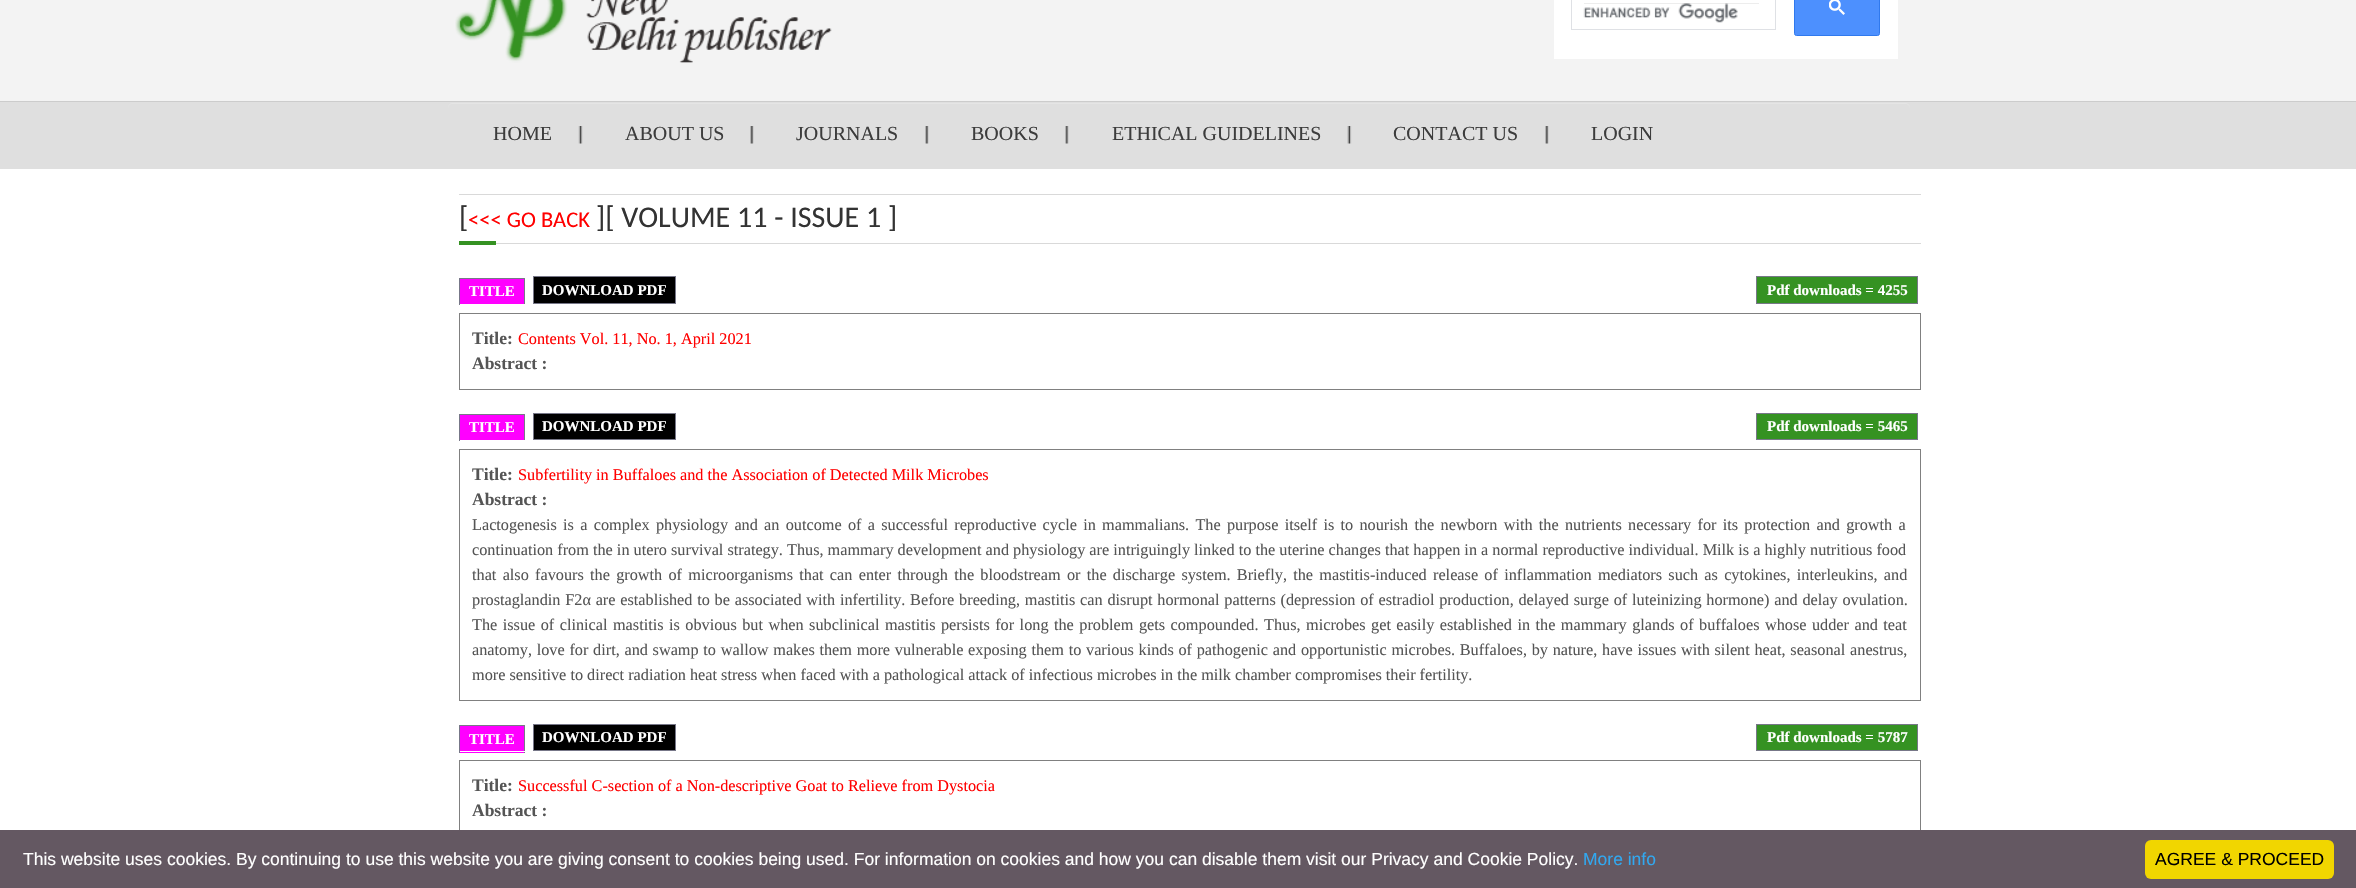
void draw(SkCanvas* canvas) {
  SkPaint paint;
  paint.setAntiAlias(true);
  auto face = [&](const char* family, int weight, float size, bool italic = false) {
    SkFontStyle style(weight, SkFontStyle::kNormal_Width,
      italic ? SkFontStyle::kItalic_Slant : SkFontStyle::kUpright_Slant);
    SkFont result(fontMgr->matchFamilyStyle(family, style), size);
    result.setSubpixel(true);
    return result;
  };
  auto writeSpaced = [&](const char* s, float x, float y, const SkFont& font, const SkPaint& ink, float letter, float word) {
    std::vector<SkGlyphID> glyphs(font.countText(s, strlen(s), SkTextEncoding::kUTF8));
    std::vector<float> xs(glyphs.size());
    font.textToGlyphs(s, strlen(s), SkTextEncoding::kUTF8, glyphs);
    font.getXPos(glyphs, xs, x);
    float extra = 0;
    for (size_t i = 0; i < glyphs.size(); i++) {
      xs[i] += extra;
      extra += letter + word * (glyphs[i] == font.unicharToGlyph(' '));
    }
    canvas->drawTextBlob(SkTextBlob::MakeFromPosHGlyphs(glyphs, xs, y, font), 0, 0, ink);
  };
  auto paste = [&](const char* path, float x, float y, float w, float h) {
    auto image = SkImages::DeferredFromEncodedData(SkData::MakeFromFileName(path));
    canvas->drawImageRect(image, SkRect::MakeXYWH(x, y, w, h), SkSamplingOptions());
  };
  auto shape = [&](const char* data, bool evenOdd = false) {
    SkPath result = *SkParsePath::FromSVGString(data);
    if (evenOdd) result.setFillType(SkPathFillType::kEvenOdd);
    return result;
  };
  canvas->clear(0xffffffff);
  paint.setColor(0xfff3f3f3);
  canvas->drawRect(SkRect::MakeXYWH(0, 0, 2356, 101), paint);
  paste("img/1.png", 455, 0, 377, 63);
  paint.setColor(0xffffffff);
  canvas->drawRect(SkRect::MakeXYWH(1554, 0, 344, 59), paint);
  paint.setStroke(true);
  paint.setStrokeWidth(1);
  paint.setColor(0xffdfe1e5);
  canvas->drawRect(SkRect::MakeXYWH(1571.5f, -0.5f, 204, 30), paint);
  paste("img/2.png", 1583, 3, 155, 20);
  paint.setStroke(false);
  paint.setColor(0x12000000);
  canvas->drawRect(SkRect::MakeXYWH(1584, 3, 175, 1), paint);
  paint.setColor(0xff4d90fe);
  canvas->drawRoundRect(SkRect::MakeXYWH(1794.5f, -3.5f, 85, 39), 2, 2, paint);
  paint.setStroke(true);
  paint.setColor(0xff3079ed);
  canvas->drawRoundRect(SkRect::MakeXYWH(1794.5f, -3.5f, 85, 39), 2, 2, paint);
  paste("img/3.png", 1829, 0, 16, 15);
  paint.setStroke(false);
  paint.setColor(0xffdfdfdf);
  canvas->drawRect(SkRect::MakeXYWH(0, 102, 2356, 67), paint);
  paint.setColor(0xffcccccc);
  canvas->drawRect(SkRect::MakeXYWH(0, 101, 2356, 1), paint);
  paint.setColor(0xffe5e5e5);
  canvas->drawPath(shape("M452 104H1905C1908 104 1910 106 1910 109V108C1910 105 1908 103 1905 103H453C450 103 448 105 448 108V109C448 106 450 104 452 104Z"), paint);
  paste("img/4.png", 578, 126, 5, 18);
  paste("img/5.png", 750, 126, 4, 18);
  paste("img/5.png", 925, 126, 4, 18);
  paste("img/6.png", 1065, 126, 4, 18);
  paste("img/7.png", 1347, 126, 5, 18);
  paste("img/5.png", 1545, 126, 4, 18);
  {
    const struct { float x, y, w, h; SkColor color; } items[] = {
      {459, 194, 1462, 1, 0xffd9d9d9},
      {496, 243, 1425, 1, 0xffd9d9d9},
      {459, 241, 37, 4, 0xff359222},
      {460, 279, 64, 25, 0xffff00ff},
      {459, 278, 66, 1, 0xff777788},
      {524, 278, 1, 27, 0xff777788},
      {524, 304, 1, 1, 0xffffffff},
      {459, 278, 1, 27, 0xff777788},
    };
    for (auto [x, y, w, h, color] : items) {
      paint.setColor(color);
      canvas->drawRect(SkRect::MakeXYWH(x, y, w, h), paint);
    }
  }
  paint.setColor(0xff000000);
  canvas->drawRect(SkRect::MakeXYWH(533.5f, 276.5f, 142, 27), paint);
  paint.setStroke(true);
  paint.setColor(0xff777788);
  canvas->drawRect(SkRect::MakeXYWH(533.5f, 276.5f, 142, 27), paint);
  paint.setStroke(false);
  paint.setColor(0xff359222);
  canvas->drawRect(SkRect::MakeXYWH(1756.5f, 276.5f, 161, 27), paint);
  paint.setStroke(true);
  paint.setColor(0xff777788);
  canvas->drawRect(SkRect::MakeXYWH(1756.5f, 276.5f, 161, 27), paint);
  paint.setColor(0xff808080);
  canvas->drawRect(SkRect::MakeXYWH(459.5f, 313.5f, 1461, 76), paint);
  paint.setStroke(false);
  {
    const struct { float x, y, w, h; SkColor color; } items[] = {
      {460, 415, 64, 25, 0xffff00ff},
      {459, 414, 66, 1, 0xff777788},
      {524, 414, 1, 27, 0xff777788},
      {524, 440, 1, 1, 0xffffffff},
      {459, 414, 1, 27, 0xff777788},
    };
    for (auto [x, y, w, h, color] : items) {
      paint.setColor(color);
      canvas->drawRect(SkRect::MakeXYWH(x, y, w, h), paint);
    }
  }
  paint.setColor(0xff000000);
  canvas->drawRect(SkRect::MakeXYWH(533.5f, 413.5f, 142, 26), paint);
  paint.setStroke(true);
  paint.setColor(0xff777788);
  canvas->drawRect(SkRect::MakeXYWH(533.5f, 413.5f, 142, 26), paint);
  paint.setStroke(false);
  paint.setColor(0xff359222);
  canvas->drawRect(SkRect::MakeXYWH(1756.5f, 413.5f, 161, 26), paint);
  paint.setStroke(true);
  paint.setColor(0xff777788);
  canvas->drawRect(SkRect::MakeXYWH(1756.5f, 413.5f, 161, 26), paint);
  paint.setColor(0xff808080);
  canvas->drawRect(SkRect::MakeXYWH(459.5f, 449.5f, 1461, 251), paint);
  paint.setStroke(false);
  {
    const struct { float x, y, w, h; SkColor color; } items[] = {
      {460, 726, 64, 27, 0xffff00ff},
      {459, 725, 66, 1, 0xff777788},
      {524, 725, 1, 28, 0xff777788},
      {459, 751, 66, 1, 0xffffffff},
      {459, 725, 1, 28, 0xff777788},
    };
    for (auto [x, y, w, h, color] : items) {
      paint.setColor(color);
      canvas->drawRect(SkRect::MakeXYWH(x, y, w, h), paint);
    }
  }
  paint.setColor(0xff000000);
  canvas->drawRect(SkRect::MakeXYWH(533.5f, 724.5f, 142, 26), paint);
  paint.setStroke(true);
  paint.setColor(0xff777788);
  canvas->drawRect(SkRect::MakeXYWH(533.5f, 724.5f, 142, 26), paint);
  paint.setStroke(false);
  paint.setColor(0xff359222);
  canvas->drawRect(SkRect::MakeXYWH(1756.5f, 724.5f, 161, 26), paint);
  paint.setStroke(true);
  paint.setColor(0xff777788);
  canvas->drawRect(SkRect::MakeXYWH(1756.5f, 724.5f, 161, 26), paint);
  paint.setColor(0xff808080);
  canvas->drawRect(SkRect::MakeXYWH(459.5f, 760.5f, 1461, 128), paint);
  paint.setStroke(false);
  paint.setColor(0xff645862);
  canvas->drawRect(SkRect::MakeXYWH(0, 830, 2356, 58), paint);
  paint.setColor(0xfff1d600);
  canvas->drawRoundRect(SkRect::MakeXYWH(2145, 840, 189, 39), 6, 6, paint);
  auto f0 = face("Liberation Serif", 400, 20);
  paint.setColor(0xff3c3c3c);
  {
    const struct { const char* s; float x, y; } items[] = {
      {"HOME", 493, 140},
      {"ABOUT US", 625, 140},
      {"JOURNALS", 796, 140},
      {"BOOKS", 971, 140},
      {"ETHICAL GUIDELINES", 1112, 140},
      {"CONTACT US", 1393, 140},
      {"LOGIN", 1591, 140},
    };
    for (auto [s, x, y] : items) {
      canvas->drawString(s, x, y, f0, paint);
    }
  }
  auto f1 = face("Carlito", 400, 30);
  paint.setColor(0xff333333);
  canvas->drawString("[", 459, 227, f1, paint);
  auto f2 = face("Carlito", 400, 22.5f);
  paint.setColor(0xffff0000);
  canvas->drawString("<<< GO BACK", 468, 227, f2, paint);
  paint.setColor(0xff333333);
  canvas->drawString("][ VOLUME 11 - ISSUE 1 ]", 596, 227, f1, paint);
  auto f3 = face("Liberation Serif", 700, 15);
  paint.setColor(0xffffffff);
  {
    const struct { const char* s; float x, y; } items[] = {
      {"TITLE", 469, 296},
      {"DOWNLOAD PDF", 542, 295},
      {"Pdf downloads = 4255", 1767, 295},
    };
    for (auto [s, x, y] : items) {
      canvas->drawString(s, x, y, f3, paint);
    }
  }
  auto f4 = face("Liberation Serif", 700, 17.5f);
  paint.setColor(0xff555555);
  canvas->drawString("Title:", 472, 344, f4, paint);
  auto f5 = face("Liberation Serif", 400, 16.25f);
  paint.setColor(0xffff0000);
  canvas->drawString("Contents Vol. 11, No. 1, April 2021", 518, 344, f5, paint);
  paint.setColor(0xff555555);
  canvas->drawString("Abstract :", 472, 369, f4, paint);
  paint.setColor(0xffffffff);
  {
    const struct { const char* s; float x, y; } items[] = {
      {"TITLE", 469, 432},
      {"DOWNLOAD PDF", 542, 431},
      {"Pdf downloads = 5465", 1767, 431},
    };
    for (auto [s, x, y] : items) {
      canvas->drawString(s, x, y, f3, paint);
    }
  }
  paint.setColor(0xff555555);
  canvas->drawString("Title:", 472, 480, f4, paint);
  paint.setColor(0xffff0000);
  canvas->drawString("Subfertility in Buffaloes and the Association of Detected Milk Microbes", 518, 480, f5, paint);
  paint.setColor(0xff555555);
  canvas->drawString("Abstract :", 472, 505, f4, paint);
  writeSpaced("Lactogenesis is a complex physiology and an outcome of a successful reproductive cycle in mammalians. The purpose itself is to nourish the newborn with the nutrients necessary for its protection and growth a", 472, 530, f5, paint, 0, 2.2f);
  canvas->drawString("continuation from the in utero survival strategy. Thus, mammary development and physiology are intriguingly linked to the uterine changes that happen in a normal reproductive individual. Milk is a highly nutritious food", 472, 555, f5, paint);
  writeSpaced("that also favours the growth of microorganisms that can enter through the bloodstream or the discharge system. Briefly, the mastitis-induced release of inflammation mediators such as cytokines, interleukins, and", 472, 580, f5, paint, 0, 2.2f);
  writeSpaced("prostaglandin F2α are established to be associated with infertility. Before breeding, mastitis can disrupt hormonal patterns (depression of estradiol production, delayed surge of luteinizing hormone) and delay ovulation.", 472, 605, f5, paint, 0, 0.7f);
  writeSpaced("The issue of clinical mastitis is obvious but when subclinical mastitis persists for long the problem gets compounded. Thus, microbes get easily established in the mammary glands of buffaloes whose udder and teat", 472, 630, f5, paint, 0, 1.4f);
  writeSpaced("anatomy, love for dirt, and swamp to wallow makes them more vulnerable exposing them to various kinds of pathogenic and opportunistic microbes. Buffaloes, by nature, have issues with silent heat, seasonal anestrus,", 472, 655, f5, paint, 0, 0.65f);
  canvas->drawString("more sensitive to direct radiation heat stress when faced with a pathological attack of infectious microbes in the milk chamber compromises their fertility.", 472, 680, f5, paint);
  paint.setColor(0xffffffff);
  {
    const struct { const char* s; float x, y; } items[] = {
      {"TITLE", 469, 744},
      {"DOWNLOAD PDF", 542, 742},
      {"Pdf downloads = 5787", 1767, 742},
    };
    for (auto [s, x, y] : items) {
      canvas->drawString(s, x, y, f3, paint);
    }
  }
  paint.setColor(0xff555555);
  canvas->drawString("Title:", 472, 791, f4, paint);
  paint.setColor(0xffff0000);
  canvas->drawString("Successful C-section of a Non-descriptive Goat to Relieve from Dystocia", 518, 791, f5, paint);
  paint.setColor(0xff555555);
  canvas->drawString("Abstract :", 472, 816, f4, paint);
  auto f6 = face("Liberation Sans", 400, 17.5f);
  paint.setColor(0xffffffff);
  canvas->drawString("This website uses cookies. By continuing to use this website you are giving consent to cookies being used. For information on cookies and how you can disable them visit our Privacy and Cookie Policy.", 23, 865, f6, paint);
  paint.setColor(0xff31a8f0);
  canvas->drawString("More info", 1583, 865, f6, paint);
  paint.setColor(0xff000000);
  canvas->drawString("AGREE & PROCEED", 2155, 865, f6, paint);
}
